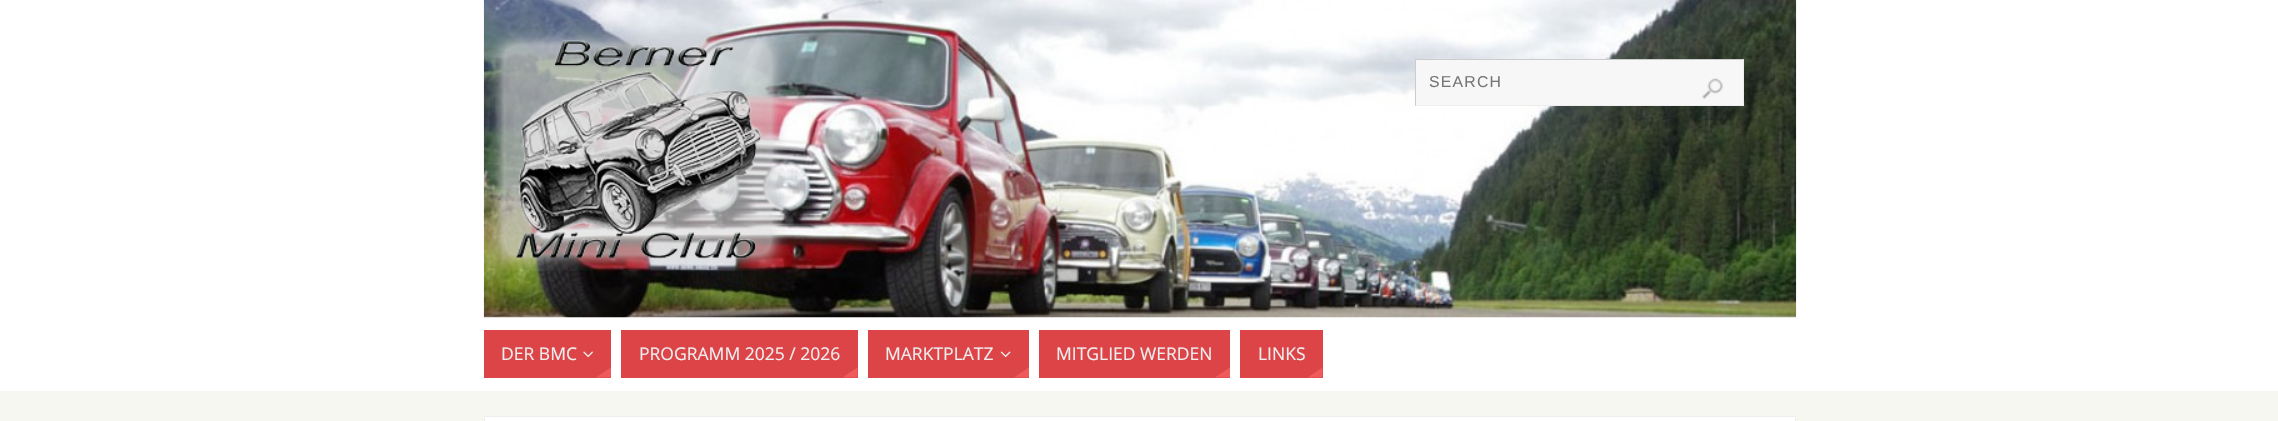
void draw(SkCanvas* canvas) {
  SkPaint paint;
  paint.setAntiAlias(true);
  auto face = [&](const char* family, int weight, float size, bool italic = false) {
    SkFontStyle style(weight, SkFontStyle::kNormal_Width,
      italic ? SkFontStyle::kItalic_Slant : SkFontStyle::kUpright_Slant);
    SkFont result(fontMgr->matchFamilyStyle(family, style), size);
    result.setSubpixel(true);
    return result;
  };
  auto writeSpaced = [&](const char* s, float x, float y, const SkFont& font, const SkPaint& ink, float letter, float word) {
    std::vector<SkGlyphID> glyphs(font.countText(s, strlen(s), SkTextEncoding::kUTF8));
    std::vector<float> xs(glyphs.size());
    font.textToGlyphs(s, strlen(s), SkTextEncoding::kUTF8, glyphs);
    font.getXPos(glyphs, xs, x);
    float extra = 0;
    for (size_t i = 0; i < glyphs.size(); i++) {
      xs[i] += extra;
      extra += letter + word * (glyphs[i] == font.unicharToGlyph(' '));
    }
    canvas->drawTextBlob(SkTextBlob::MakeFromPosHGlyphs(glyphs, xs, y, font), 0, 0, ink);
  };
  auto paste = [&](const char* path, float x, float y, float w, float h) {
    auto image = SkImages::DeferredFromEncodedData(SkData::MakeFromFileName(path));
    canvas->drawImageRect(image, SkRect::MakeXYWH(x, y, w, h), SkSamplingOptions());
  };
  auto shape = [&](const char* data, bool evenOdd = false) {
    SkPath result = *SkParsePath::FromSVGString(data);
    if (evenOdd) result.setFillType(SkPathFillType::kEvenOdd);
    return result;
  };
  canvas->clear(0xfff7f7f2);
  paint.setColor(0xffffffff);
  canvas->drawRect(SkRect::MakeXYWH(0, 0, 2278, 391), paint);
  paste("img/1.png", 483, 0, 1314, 318);
  paste("img/2.png", 488, 29, 299, 242);
  {
    const struct { float x, y, w, h; SkColor color; } items[] = {
      {1416, 60, 327, 45, 0xfff7f7f7},
      {1415, 59, 329, 1, 0xffcccccc},
      {1743, 59, 1, 47, 0xffeeeeee},
      {1415, 105, 329, 1, 0xffeeeeee},
      {1415, 59, 1, 47, 0xffcccccc},
    };
    for (auto [x, y, w, h, color] : items) {
      paint.setColor(color);
      canvas->drawRect(SkRect::MakeXYWH(x, y, w, h), paint);
    }
  }
  paste("img/3.png", 1702, 78, 21, 21);
  paint.setColor(0xffdd4447);
  canvas->drawRect(SkRect::MakeXYWH(484, 330, 127, 48), paint);
  paste("img/4.png", 583, 351, 10, 7);
  paint.setColor(0xffef5b5b);
  canvas->drawPath(shape("M611 377.5H596L611 367.5Z"), paint);
  paint.setColor(0xffdd4447);
  canvas->drawRect(SkRect::MakeXYWH(621, 330, 237, 48), paint);
  paint.setColor(0xffef5b5b);
  canvas->drawPath(shape("M857.5 377.5H842.5L857.5 367.5Z"), paint);
  paint.setColor(0xffdd4447);
  canvas->drawRect(SkRect::MakeXYWH(868, 330, 161, 48), paint);
  paste("img/5.png", 1000, 351, 11, 7);
  paint.setColor(0xffef5b5b);
  canvas->drawPath(shape("M1029 377.5H1014L1029 367.5Z"), paint);
  paint.setColor(0xffdd4447);
  canvas->drawRect(SkRect::MakeXYWH(1039, 330, 191, 48), paint);
  paint.setColor(0xffef5b5b);
  canvas->drawPath(shape("M1230 377.5H1215L1230 367.5Z"), paint);
  paint.setColor(0xffdd4447);
  canvas->drawRect(SkRect::MakeXYWH(1240, 330, 83, 48), paint);
  paint.setColor(0xffef5b5b);
  canvas->drawPath(shape("M1322.5 377.5H1307.5L1322.5 367.5Z"), paint);
  paint.setColor(0xffffffff);
  canvas->drawRect(SkRect::MakeXYWH(484.5f, 416.5f, 1311, 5), paint);
  paint.setStroke(true);
  paint.setStrokeWidth(1);
  paint.setColor(0xffeeeeee);
  canvas->drawRect(SkRect::MakeXYWH(484.5f, 416.5f, 1311, 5), paint);
  auto f0 = face("Liberation Sans", 400, 15.75f);
  paint.setStroke(false);
  paint.setColor(0xff757575);
  writeSpaced("SEARCH", 1429, 87, f0, paint, 1.25f, 0);
  auto f1 = face("Open Sans", 400, 17.5f);
  paint.setColor(0xffeeeeee);
  {
    const struct { const char* s; float x, y; } items[] = {
      {"DER BMC", 501, 360},
      {"PROGRAMM 2025 / 2026", 639, 360},
      {"MARKTPLATZ", 885, 360},
      {"MITGLIED WERDEN", 1056, 360},
      {"LINKS", 1258, 360},
    };
    for (auto [s, x, y] : items) {
      canvas->drawString(s, x, y, f1, paint);
    }
  }
}
